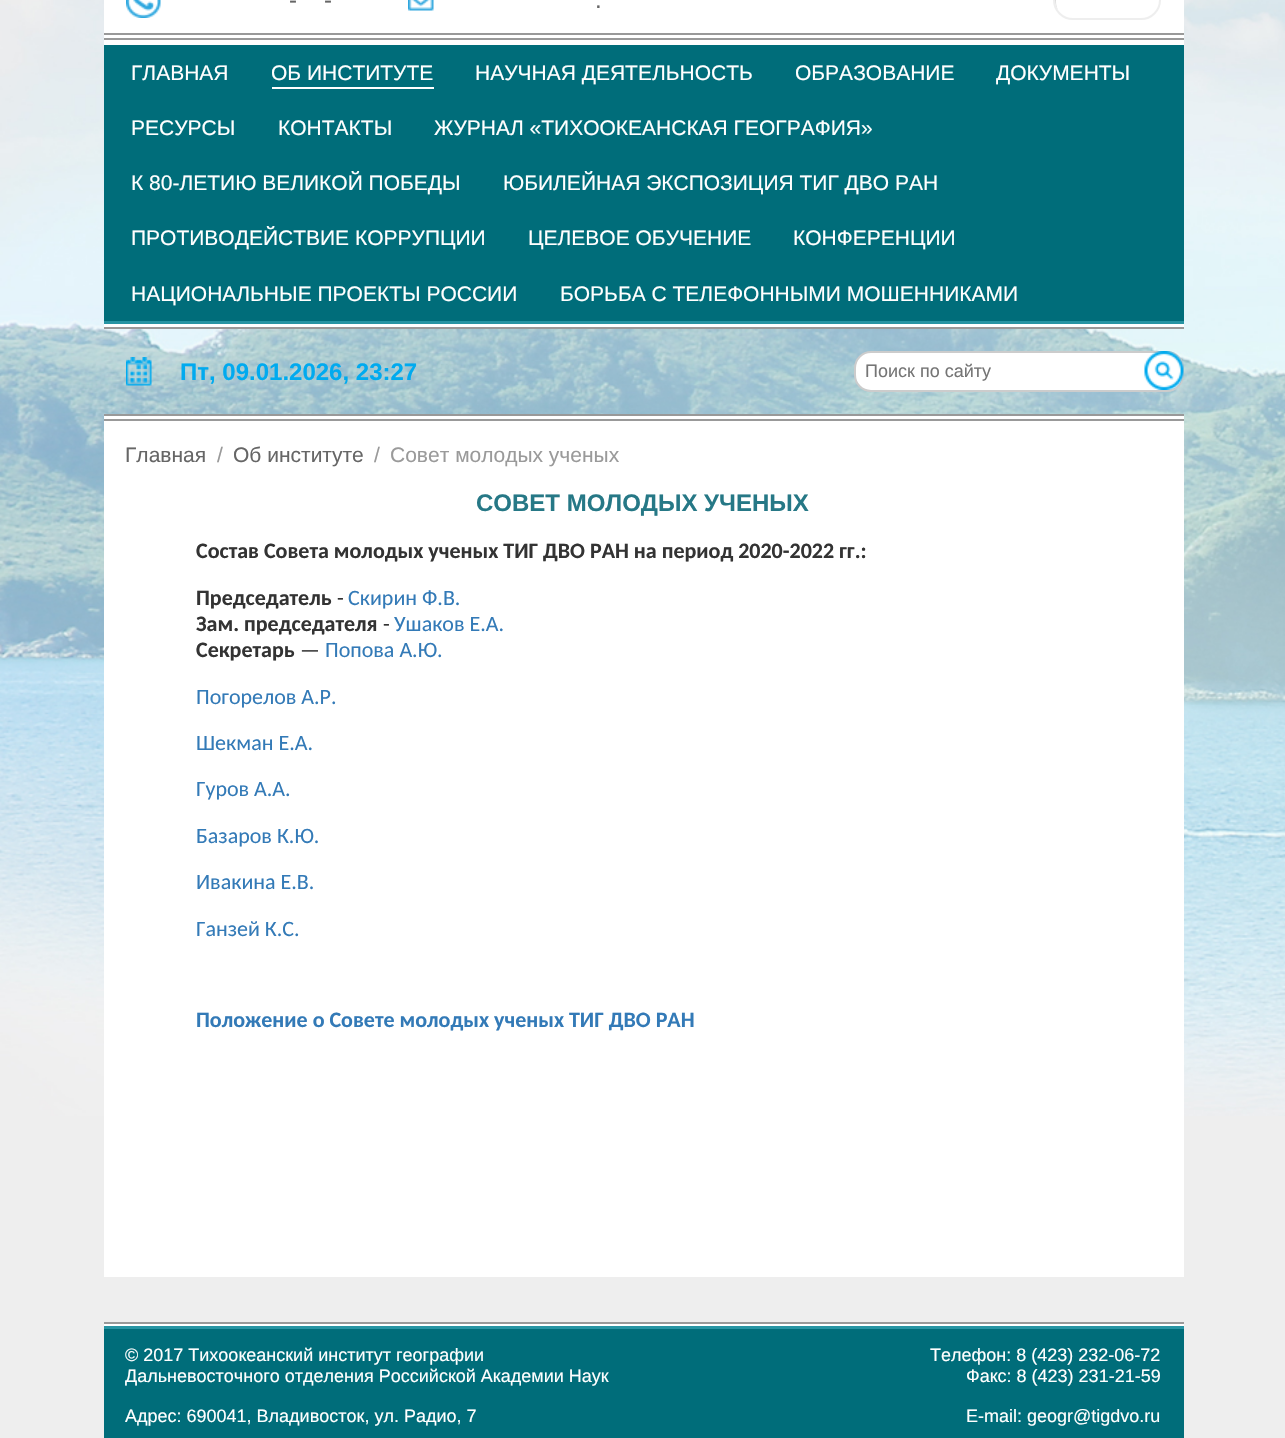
void draw(SkCanvas* canvas) {
  SkPaint paint;
  paint.setAntiAlias(true);
  auto face = [&](const char* family, int weight, float size, bool italic = false) {
    SkFontStyle style(weight, SkFontStyle::kNormal_Width,
      italic ? SkFontStyle::kItalic_Slant : SkFontStyle::kUpright_Slant);
    SkFont result(fontMgr->matchFamilyStyle(family, style), size);
    result.setSubpixel(true);
    return result;
  };
  auto paste = [&](const char* path, float x, float y, float w, float h) {
    auto image = SkImages::DeferredFromEncodedData(SkData::MakeFromFileName(path));
    canvas->drawImageRect(image, SkRect::MakeXYWH(x, y, w, h), SkSamplingOptions());
  };
  auto shape = [&](const char* data, bool evenOdd = false) {
    SkPath result = *SkParsePath::FromSVGString(data);
    if (evenOdd) result.setFillType(SkPathFillType::kEvenOdd);
    return result;
  };
  canvas->clear(0xffeeeeee);
  paste("img/1.png", 0, 0, 1285, 1116);
  paint.setColor(0xffffffff);
  canvas->drawRect(SkRect::MakeXYWH(104, 0, 1080, 33), paint);
  paste("img/2.png", 126, 0, 35, 18);
  paint.setColor(0xffdbdbdb);
  canvas->drawPath(shape("M1074-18H1143C1148-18 1152-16 1155-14C1152-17 1147-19 1142-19H1073C1063-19 1055-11 1055-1V0C1055 4 1056 7 1058 10C1052-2 1060-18 1074-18Z"), paint);
  paint.setStroke(true);
  paint.setStrokeWidth(2);
  paint.setColor(0xffeeeeee);
  canvas->drawRoundRect(SkRect::MakeXYWH(1054, -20, 106, 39), 19, 19, paint);
  paste("img/3.png", 408, 0, 26, 11);
  paint.setStroke(false);
  {
    const struct { float x, y, w, h; SkColor color; } items[] = {
      {104, 35, 1080, 292, 0xffffffff},
      {104, 33, 1080, 2, 0xff999999},
      {104, 38, 1080, 2, 0xff999999},
      {104, 327, 1080, 2, 0xff999999},
      {104, 45, 1080, 276, 0xff006d7a},
      {104, 321, 1080, 3, 0xff2794a3},
      {272, 87, 162, 2, 0xffffffff},
    };
    for (auto [x, y, w, h, color] : items) {
      paint.setColor(color);
      canvas->drawRect(SkRect::MakeXYWH(x, y, w, h), paint);
    }
  }
  paste("img/4.png", 126, 357, 26, 29);
  canvas->drawRoundRect(SkRect::MakeXYWH(855, 352, 328, 39), 16, 16, paint);
  paint.setStroke(true);
  paint.setColor(0xffcccccc);
  canvas->drawRoundRect(SkRect::MakeXYWH(855, 352, 328, 39), 16, 16, paint);
  paste("img/5.png", 1144, 351, 40, 39);
  paint.setStroke(false);
  {
    const struct { float x, y, w, h; SkColor color; } items[] = {
      {104, 416, 1080, 861, 0xffffffff},
      {104, 414, 1080, 2, 0xff999999},
      {104, 419, 1080, 2, 0xff999999},
      {104, 1329, 1080, 109, 0xff006d7a},
      {104, 1324, 1080, 2, 0xffffffff},
      {104, 1322, 1080, 2, 0xff999999},
      {104, 1326, 1080, 3, 0xff2794a3},
    };
    for (auto [x, y, w, h, color] : items) {
      paint.setColor(color);
      canvas->drawRect(SkRect::MakeXYWH(x, y, w, h), paint);
    }
  }
  auto f0 = face("Liberation Sans", 400, 24);
  paint.setColor(0xff666666);
  {
    const struct { const char* s; float x, y; } items[] = {
      {"-", 289, 8},
      {"-", 324, 8},
      {".", 595, 8},
    };
    for (auto [s, x, y] : items) {
      canvas->drawString(s, x, y, f0, paint);
    }
  }
  auto f1 = face("Liberation Sans", 400, 21);
  paint.setColor(0xffffffff);
  {
    const struct { const char* s; float x, y; } items[] = {
      {"ГЛАВНАЯ", 131, 80},
      {"ОБ ИНСТИТУТЕ", 271, 80},
      {"НАУЧНАЯ ДЕЯТЕЛЬНОСТЬ", 475, 80},
      {"ОБРАЗОВАНИЕ", 795, 80},
      {"ДОКУМЕНТЫ", 996, 80},
      {"РЕСУРСЫ", 131, 135},
      {"КОНТАКТЫ", 278, 135},
      {"ЖУРНАЛ «ТИХООКЕАНСКАЯ ГЕОГРАФИЯ»", 434, 135},
      {"К 80-ЛЕТИЮ ВЕЛИКОЙ ПОБЕДЫ", 131, 190},
      {"ЮБИЛЕЙНАЯ ЭКСПОЗИЦИЯ ТИГ ДВО РАН", 503, 190},
      {"ПРОТИВОДЕЙСТВИЕ КОРРУПЦИИ", 131, 245},
      {"ЦЕЛЕВОЕ ОБУЧЕНИЕ", 528, 245},
      {"КОНФЕРЕНЦИИ", 793, 245},
      {"НАЦИОНАЛЬНЫЕ ПРОЕКТЫ РОССИИ", 131, 301},
      {"БОРЬБА С ТЕЛЕФОННЫМИ МОШЕННИКАМИ", 560, 301},
    };
    for (auto [s, x, y] : items) {
      canvas->drawString(s, x, y, f1, paint);
    }
  }
  auto f2 = face("Liberation Sans", 700, 24);
  paint.setColor(0xff00aaef);
  canvas->drawString("Пт, 09.01.2026, 23:27", 180, 380, f2, paint);
  auto f3 = face("Liberation Sans", 400, 18);
  paint.setColor(0xff757575);
  canvas->drawString("Поиск по сайту", 865, 377, f3, paint);
  paint.setColor(0xff666666);
  canvas->drawString("Главная", 125, 462, f1, paint);
  paint.setColor(0xff9a9a9a);
  canvas->drawString("/", 217, 462, f1, paint);
  paint.setColor(0xff666666);
  canvas->drawString("Об институте", 233, 462, f1, paint);
  paint.setColor(0xff9a9a9a);
  canvas->drawString("/", 374, 462, f1, paint);
  canvas->drawString("Совет молодых ученых", 390, 462, f1, paint);
  paint.setColor(0xff267886);
  canvas->drawString("СОВЕТ МОЛОДЫХ УЧЕНЫХ", 476, 511, f2, paint);
  auto f4 = face("Carlito", 700, 22);
  paint.setColor(0xff333333);
  canvas->drawString("Состав Совета молодых ученых ТИГ ДВО РАН на период 2020-2022 гг.:", 196, 558, f4, paint);
  canvas->drawString("Председатель", 196, 605, f4, paint);
  auto f5 = face("Carlito", 400, 22);
  canvas->drawString("-", 337, 605, f5, paint);
  paint.setColor(0xff337ab7);
  canvas->drawString("Скирин Ф.В.", 348, 605, f5, paint);
  paint.setColor(0xff333333);
  canvas->drawString("Зам. председателя", 196, 631, f4, paint);
  canvas->drawString("-", 383, 631, f5, paint);
  paint.setColor(0xff337ab7);
  canvas->drawString("Ушаков Е.А.", 394, 631, f5, paint);
  paint.setColor(0xff333333);
  canvas->drawString("Секретарь", 196, 657, f4, paint);
  canvas->drawString("—", 300, 657, f5, paint);
  paint.setColor(0xff337ab7);
  {
    const struct { const char* s; float x, y; } items[] = {
      {"Попова А.Ю.", 325, 657},
      {"Погорелов А.Р.", 196, 704},
      {"Шекман Е.А.", 196, 750},
      {"Гуров А.А.", 196, 796},
      {"Базаров К.Ю.", 196, 843},
      {"Ивакина Е.В.", 196, 889},
      {"Ганзей К.С.", 196, 936},
    };
    for (auto [s, x, y] : items) {
      canvas->drawString(s, x, y, f5, paint);
    }
  }
  canvas->drawString("Положение о Совете молодых ученых ТИГ ДВО РАН", 196, 1027, f4, paint);
  paint.setColor(0xffffffff);
  {
    const struct { const char* s; float x, y; } items[] = {
      {"© 2017 Тихоокеанский институт географии", 125, 1361},
      {"Дальневосточного отделения Российской Академии Наук", 125, 1382},
      {"Адрес: 690041, Владивосток, ул. Радио, 7", 125, 1422},
      {"Телефон: 8 (423) 232-06-72", 930, 1361},
      {"Факс: 8 (423) 231-21-59", 966, 1382},
      {"E-mail: geogr@tigdvo.ru", 966, 1422},
    };
    for (auto [s, x, y] : items) {
      canvas->drawString(s, x, y, f3, paint);
    }
  }
}
